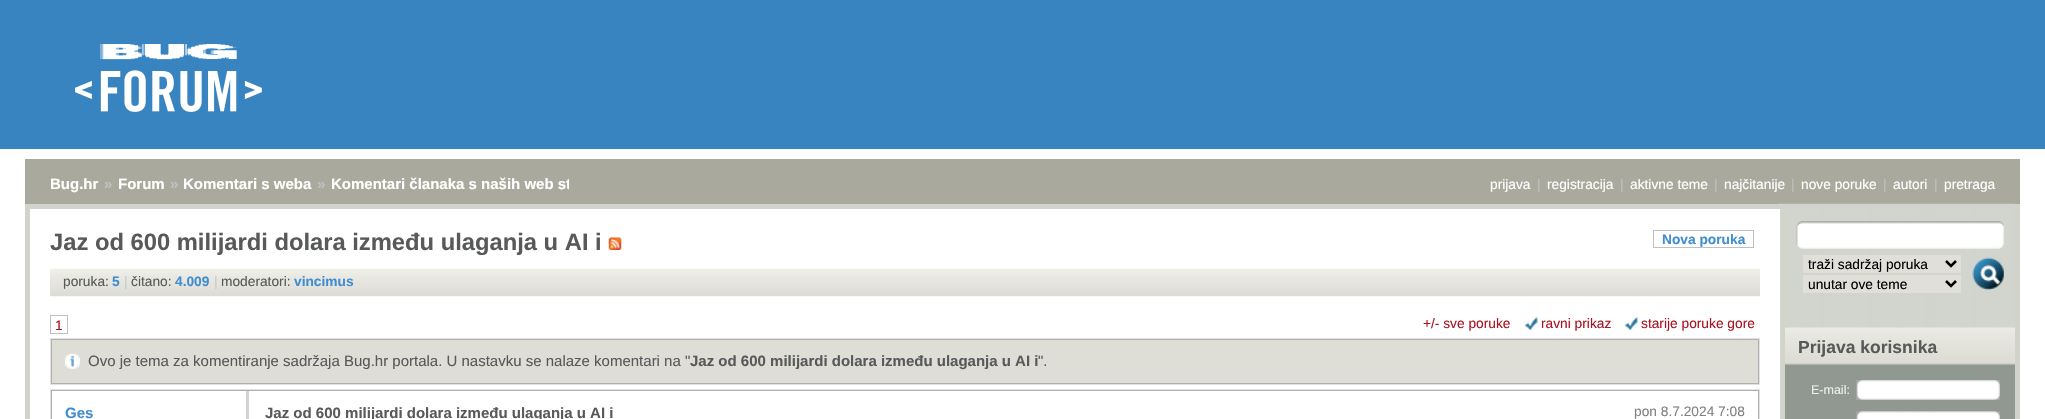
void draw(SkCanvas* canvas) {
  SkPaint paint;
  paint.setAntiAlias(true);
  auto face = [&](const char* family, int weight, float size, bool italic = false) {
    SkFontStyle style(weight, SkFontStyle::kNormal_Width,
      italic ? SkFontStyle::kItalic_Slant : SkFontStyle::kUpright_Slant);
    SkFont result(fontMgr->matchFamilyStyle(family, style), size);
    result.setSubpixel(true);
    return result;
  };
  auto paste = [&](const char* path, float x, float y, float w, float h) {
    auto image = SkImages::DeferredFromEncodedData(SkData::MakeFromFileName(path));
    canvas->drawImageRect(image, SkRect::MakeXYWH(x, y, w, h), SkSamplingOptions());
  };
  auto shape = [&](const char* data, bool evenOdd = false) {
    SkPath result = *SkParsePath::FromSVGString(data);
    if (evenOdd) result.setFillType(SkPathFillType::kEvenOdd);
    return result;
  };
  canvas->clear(0xffffffff);
  paint.setColor(0xff3784c1);
  canvas->drawRect(SkRect::MakeXYWH(0, 0, 2045, 149), paint);
  paste("img/1.png", 75, 44, 187, 68);
  paint.setColor(0xffaaa99d);
  canvas->drawRect(SkRect::MakeXYWH(25, 159, 1995, 45), paint);
  paste("img/2.png", 1778, 203, 237, 216);
  paint.setStroke(true);
  paint.setStrokeWidth(5);
  paint.setColor(0xffd1d4cd);
  canvas->drawRect(SkRect::MakeXYWH(27.5f, 206.5f, 1990, 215), paint);
  paint.setStroke(false);
  paint.setColor(0xffffffff);
  canvas->drawRect(SkRect::MakeXYWH(1778, 209, 2, 210), paint);
  paste("img/3.png", 608, 237, 14, 13);
  paint.setStroke(true);
  paint.setStrokeWidth(1);
  paint.setColor(0xffc0c0c0);
  canvas->drawRect(SkRect::MakeXYWH(1653.5f, 230.5f, 100, 17), paint);
  paste("img/4.png", 50, 268, 1710, 29);
  canvas->drawRect(SkRect::MakeXYWH(50.5f, 315.5f, 17, 18), paint);
  paste("img/5.png", 1525, 317, 13, 13);
  paste("img/5.png", 1625, 317, 13, 13);
  paint.setColor(0xffe1e2e1);
  canvas->drawRect(SkRect::MakeXYWH(50.5f, 338.5f, 1709, 46), paint);
  paint.setStroke(false);
  paint.setColor(0xffdeddd6);
  canvas->drawRect(SkRect::MakeXYWH(52, 340, 1706, 43), paint);
  paste("img/6.png", 65, 353, 15, 16);
  paint.setStroke(true);
  paint.setColor(0xffaeb2ae);
  canvas->drawRect(SkRect::MakeXYWH(51.5f, 339.5f, 1707, 44), paint);
  paint.setColor(0xffe1e2e1);
  canvas->drawRect(SkRect::MakeXYWH(50.5f, 389.5f, 1709, 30), paint);
  paint.setStroke(false);
  paint.setColor(0xffd1d4d2);
  canvas->drawRect(SkRect::MakeXYWH(246, 390, 3, 29), paint);
  paint.setStroke(true);
  paint.setColor(0xffaeb2ae);
  canvas->drawRect(SkRect::MakeXYWH(51.5f, 390.5f, 1707, 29), paint);
  paste("img/7.png", 1796, 221, 208, 28);
  paint.setStroke(false);
  paint.setColor(0xffe0dfd8);
  canvas->drawRect(SkRect::MakeXYWH(1803, 255, 158, 18), paint);
  paint.setStroke(true);
  paint.setStrokeWidth(2.5f);
  paint.setColor(0xff000000);
  canvas->drawPath(shape("M1946 261L1951 266L1956 261"), paint);
  paint.setStroke(false);
  paint.setColor(0xffe0dfd8);
  canvas->drawRect(SkRect::MakeXYWH(1803, 275, 158, 18), paint);
  paint.setStroke(true);
  paint.setColor(0xff000000);
  canvas->drawPath(shape("M1946 281L1951 286L1956 281"), paint);
  paste("img/8.png", 1972, 257, 32, 33);
  paste("img/9.png", 1785, 327, 230, 38);
  paint.setStroke(false);
  paint.setColor(0xff919791);
  canvas->drawRect(SkRect::MakeXYWH(1785, 365, 230, 54), paint);
  paste("img/10.png", 1856, 380, 144, 20);
  paste("img/11.png", 1856, 411, 144, 8);
  auto f0 = face("Liberation Sans", 700, 15);
  paint.setColor(0xffffffff);
  canvas->drawString("Bug.hr", 50, 189, f0, paint);
  paint.setColor(0xffc0c0c0);
  canvas->drawString("»", 104, 189, f0, paint);
  paint.setColor(0xffffffff);
  canvas->drawString("Forum", 118, 189, f0, paint);
  paint.setColor(0xffc0c0c0);
  canvas->drawString("»", 170, 189, f0, paint);
  paint.setColor(0xffffffff);
  canvas->drawString("Komentari s weba", 183, 189, f0, paint);
  paint.setColor(0xffc0c0c0);
  canvas->drawString("»", 317, 189, f0, paint);
  canvas->save();
  canvas->clipRect(SkRect::MakeXYWH(50, 175, 519, 18));
  paint.setColor(0xffffffff);
  canvas->drawString("Komentari članaka s naših web st", 331, 189, f0, paint);
  canvas->restore();
  auto f1 = face("Liberation Sans", 400, 13.75f);
  canvas->drawString("prijava", 1490, 189, f1, paint);
  paint.setColor(0xffc0c0c0);
  canvas->drawString("|", 1537, 189, f1, paint);
  paint.setColor(0xffffffff);
  canvas->drawString("registracija", 1547, 189, f1, paint);
  paint.setColor(0xffc0c0c0);
  canvas->drawString("|", 1620, 189, f1, paint);
  paint.setColor(0xffffffff);
  canvas->drawString("aktivne teme", 1630, 189, f1, paint);
  paint.setColor(0xffc0c0c0);
  canvas->drawString("|", 1714, 189, f1, paint);
  paint.setColor(0xffffffff);
  canvas->drawString("najčitanije", 1724, 189, f1, paint);
  paint.setColor(0xffc0c0c0);
  canvas->drawString("|", 1791, 189, f1, paint);
  paint.setColor(0xffffffff);
  canvas->drawString("nove poruke", 1801, 189, f1, paint);
  paint.setColor(0xffc0c0c0);
  canvas->drawString("|", 1883, 189, f1, paint);
  paint.setColor(0xffffffff);
  canvas->drawString("autori", 1893, 189, f1, paint);
  paint.setColor(0xffc0c0c0);
  canvas->drawString("|", 1934, 189, f1, paint);
  paint.setColor(0xffffffff);
  canvas->drawString("pretraga", 1944, 189, f1, paint);
  auto f2 = face("Liberation Sans", 700, 23.75f);
  paint.setColor(0xff58595a);
  canvas->drawString("Jaz od 600 milijardi dolara između ulaganja u AI i", 50, 250, f2, paint);
  auto f3 = face("Liberation Sans", 700, 13.75f);
  paint.setColor(0xff408dcf);
  canvas->drawString("Nova poruka", 1662, 244, f3, paint);
  paint.setColor(0xff58595a);
  canvas->drawString("poruka:", 63, 286, f1, paint);
  paint.setColor(0xff408dcf);
  canvas->drawString("5", 112, 286, f3, paint);
  paint.setColor(0xffc8ccc3);
  canvas->drawString("|", 124, 286, f1, paint);
  paint.setColor(0xff58595a);
  canvas->drawString("čitano:", 131, 286, f1, paint);
  paint.setColor(0xff408dcf);
  canvas->drawString("4.009", 175, 286, f3, paint);
  paint.setColor(0xffc8ccc3);
  canvas->drawString("|", 214, 286, f1, paint);
  paint.setColor(0xff58595a);
  canvas->drawString("moderatori:", 221, 286, f1, paint);
  paint.setColor(0xff408dcf);
  canvas->drawString("vincimus", 294, 286, f3, paint);
  paint.setColor(0xffaa1323);
  {
    const struct { const char* s; float x, y; } items[] = {
      {"1", 55, 330},
      {"+/- sve poruke", 1423, 328},
      {"ravni prikaz", 1541, 328},
      {"starije poruke gore", 1641, 328},
    };
    for (auto [s, x, y] : items) {
      canvas->drawString(s, x, y, f1, paint);
    }
  }
  auto f4 = face("Liberation Sans", 400, 15);
  paint.setColor(0xff58595a);
  canvas->drawString("Ovo je tema za komentiranje sadržaja Bug.hr portala. U nastavku se nalaze komentari na \"", 88, 366, f4, paint);
  canvas->drawString("Jaz od 600 milijardi dolara između ulaganja u AI i", 690, 366, f0, paint);
  canvas->drawString("\".", 1038, 366, f4, paint);
  paint.setColor(0xff408dcf);
  canvas->drawString("Ges", 65, 418, f0, paint);
  paint.setColor(0xff58595a);
  canvas->drawString("Jaz od 600 milijardi dolara između ulaganja u AI i", 265, 418, f0, paint);
  paint.setColor(0xff808080);
  canvas->drawString("pon 8.7.2024 7:08", 1634, 416, f1, paint);
  paint.setColor(0xff000000);
  canvas->drawString("traži sadržaj poruka", 1808, 269, f1, paint);
  canvas->drawString("unutar ove teme", 1808, 289, f1, paint);
  auto f5 = face("Liberation Sans", 700, 17.5f);
  paint.setColor(0xff58595a);
  canvas->drawString("Prijava korisnika", 1798, 353, f5, paint);
  auto f6 = face("Liberation Sans", 400, 12.5f);
  paint.setColor(0xffededed);
  canvas->drawString("E-mail:", 1811, 394, f6, paint);
}
